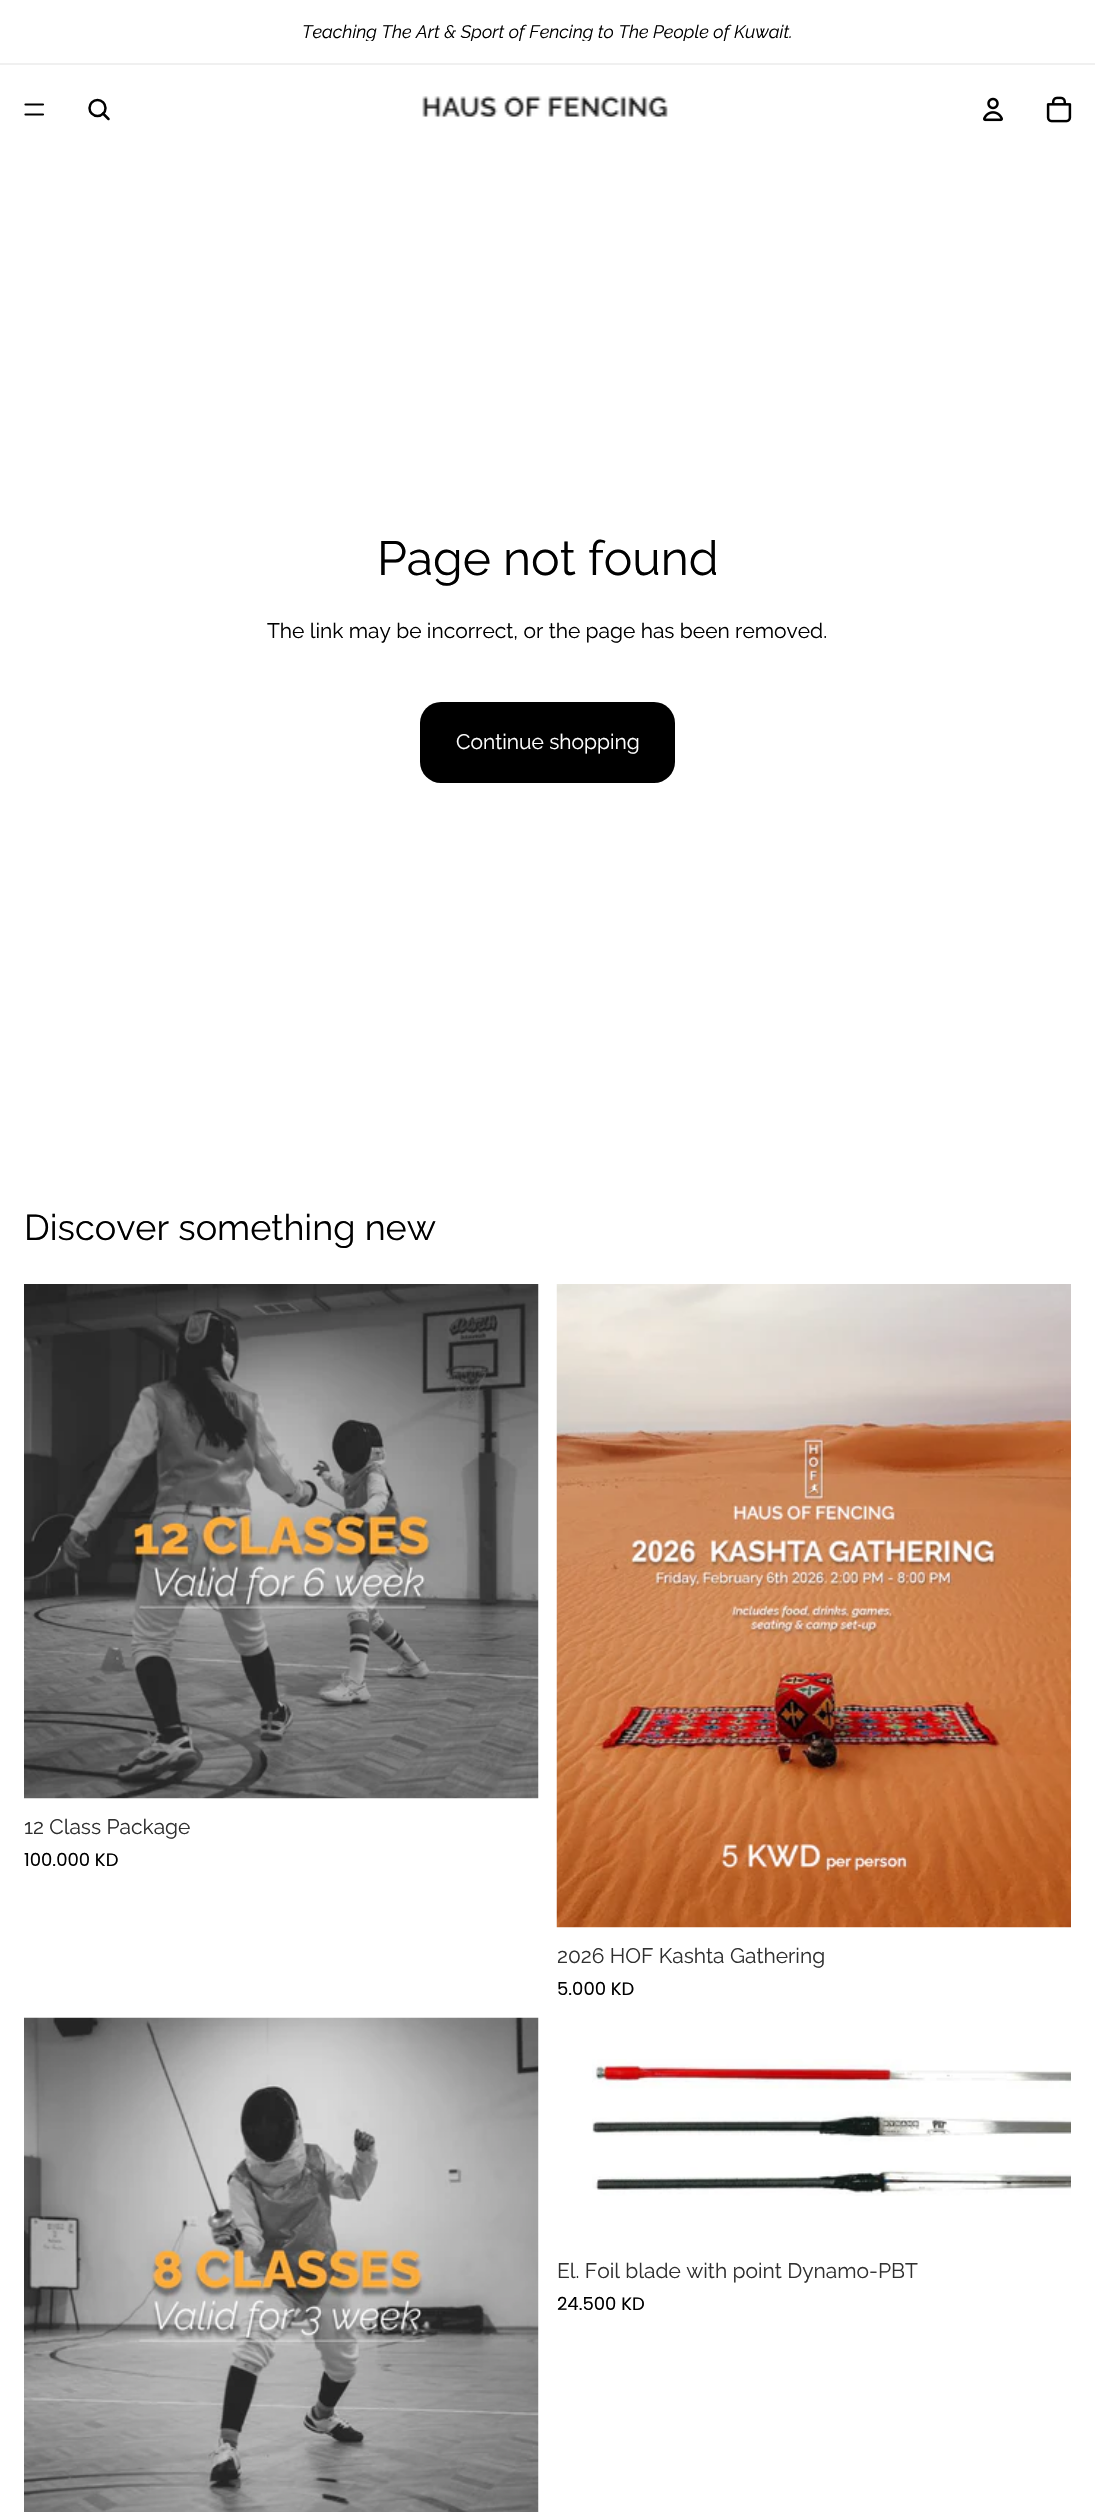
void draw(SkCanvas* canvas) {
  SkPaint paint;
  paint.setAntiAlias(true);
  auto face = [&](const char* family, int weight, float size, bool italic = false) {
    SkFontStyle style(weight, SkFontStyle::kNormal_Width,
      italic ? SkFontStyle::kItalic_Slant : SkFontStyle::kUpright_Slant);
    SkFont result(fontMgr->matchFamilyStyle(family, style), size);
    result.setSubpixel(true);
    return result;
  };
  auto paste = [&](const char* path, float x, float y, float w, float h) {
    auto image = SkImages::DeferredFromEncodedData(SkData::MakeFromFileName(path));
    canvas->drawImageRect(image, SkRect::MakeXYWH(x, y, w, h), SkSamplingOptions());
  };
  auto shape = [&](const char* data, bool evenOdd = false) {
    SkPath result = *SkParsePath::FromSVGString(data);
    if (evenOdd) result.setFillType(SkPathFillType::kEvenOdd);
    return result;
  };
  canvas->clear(0xffffffff);
  paint.setColor(0xfff0f0f0);
  canvas->drawRect(SkRect::MakeXYWH(0, 63, 1095, 2), paint);
  paint.setStroke(true);
  paint.setStrokeWidth(2.2f);
  paint.setStrokeCap(SkPaint::kRound_Cap);
  paint.setColor(0xff000000);
  canvas->drawPath(shape("M25.5 104.5H43M25.5 114.5H43"), paint);
  paint.setStrokeWidth(2.5f);
  paint.setStrokeCap(SkPaint::kButt_Cap);
  canvas->drawCircle(97.5f, 108, 8, paint);
  paint.setStrokeCap(SkPaint::kRound_Cap);
  paint.setStrokeJoin(SkPaint::kRound_Join);
  canvas->drawPath(shape("M103 113.5L108.5 119"), paint);
  paste("img/1.png", 422, 96, 246, 22);
  paste("img/2.png", 983, 97, 20, 25);
  paste("img/3.png", 1046, 96, 26, 27);
  paint.setStroke(false);
  canvas->drawRoundRect(SkRect::MakeXYWH(420, 702, 255, 81), 21, 21, paint);
  paste("img/4.png", 24, 1284, 515, 515);
  paste("img/5.png", 556, 1284, 515, 644);
  paste("img/6.png", 24, 2017, 515, 495);
  paste("img/7.png", 592, 2059, 479, 137);
  canvas->save();
  canvas->clipRect(SkRect::MakeXYWH(66, 23, 963, 18));
  auto f0 = face("Raleway", 400, 18, true);
  canvas->drawString("Teaching The Art & Sport of Fencing to The People of Kuwait.", 302, 38, f0, paint);
  canvas->restore();
  auto f1 = face("Raleway", 400, 48);
  canvas->drawString("Page not found", 377, 575, f1, paint);
  auto f2 = face("Raleway", 400, 21);
  canvas->drawString("The link may be incorrect, or the page has been removed.", 267, 638, f2, paint);
  paint.setColor(0xffffffff);
  canvas->drawString("Continue shopping", 456, 749, f2, paint);
  auto f3 = face("Raleway", 400, 36);
  paint.setColor(0xff000000);
  canvas->drawString("Discover something new", 24, 1240, f3, paint);
  paint.setColor(0xff303030);
  canvas->drawString("12 Class Package", 24, 1834, f2, paint);
  auto f4 = face("Poppins", 400, 18);
  paint.setColor(0xff000000);
  canvas->drawString("100.000 KD", 24, 1866, f4, paint);
  paint.setColor(0xff303030);
  canvas->drawString("2026 HOF Kashta Gathering", 557, 1963, f2, paint);
  paint.setColor(0xff000000);
  canvas->drawString("5.000 KD", 557, 1995, f4, paint);
  paint.setColor(0xff303030);
  canvas->drawString("El. Foil blade with point Dynamo-PBT", 557, 2278, f2, paint);
  paint.setColor(0xff000000);
  canvas->drawString("24.500 KD", 557, 2310, f4, paint);
}
